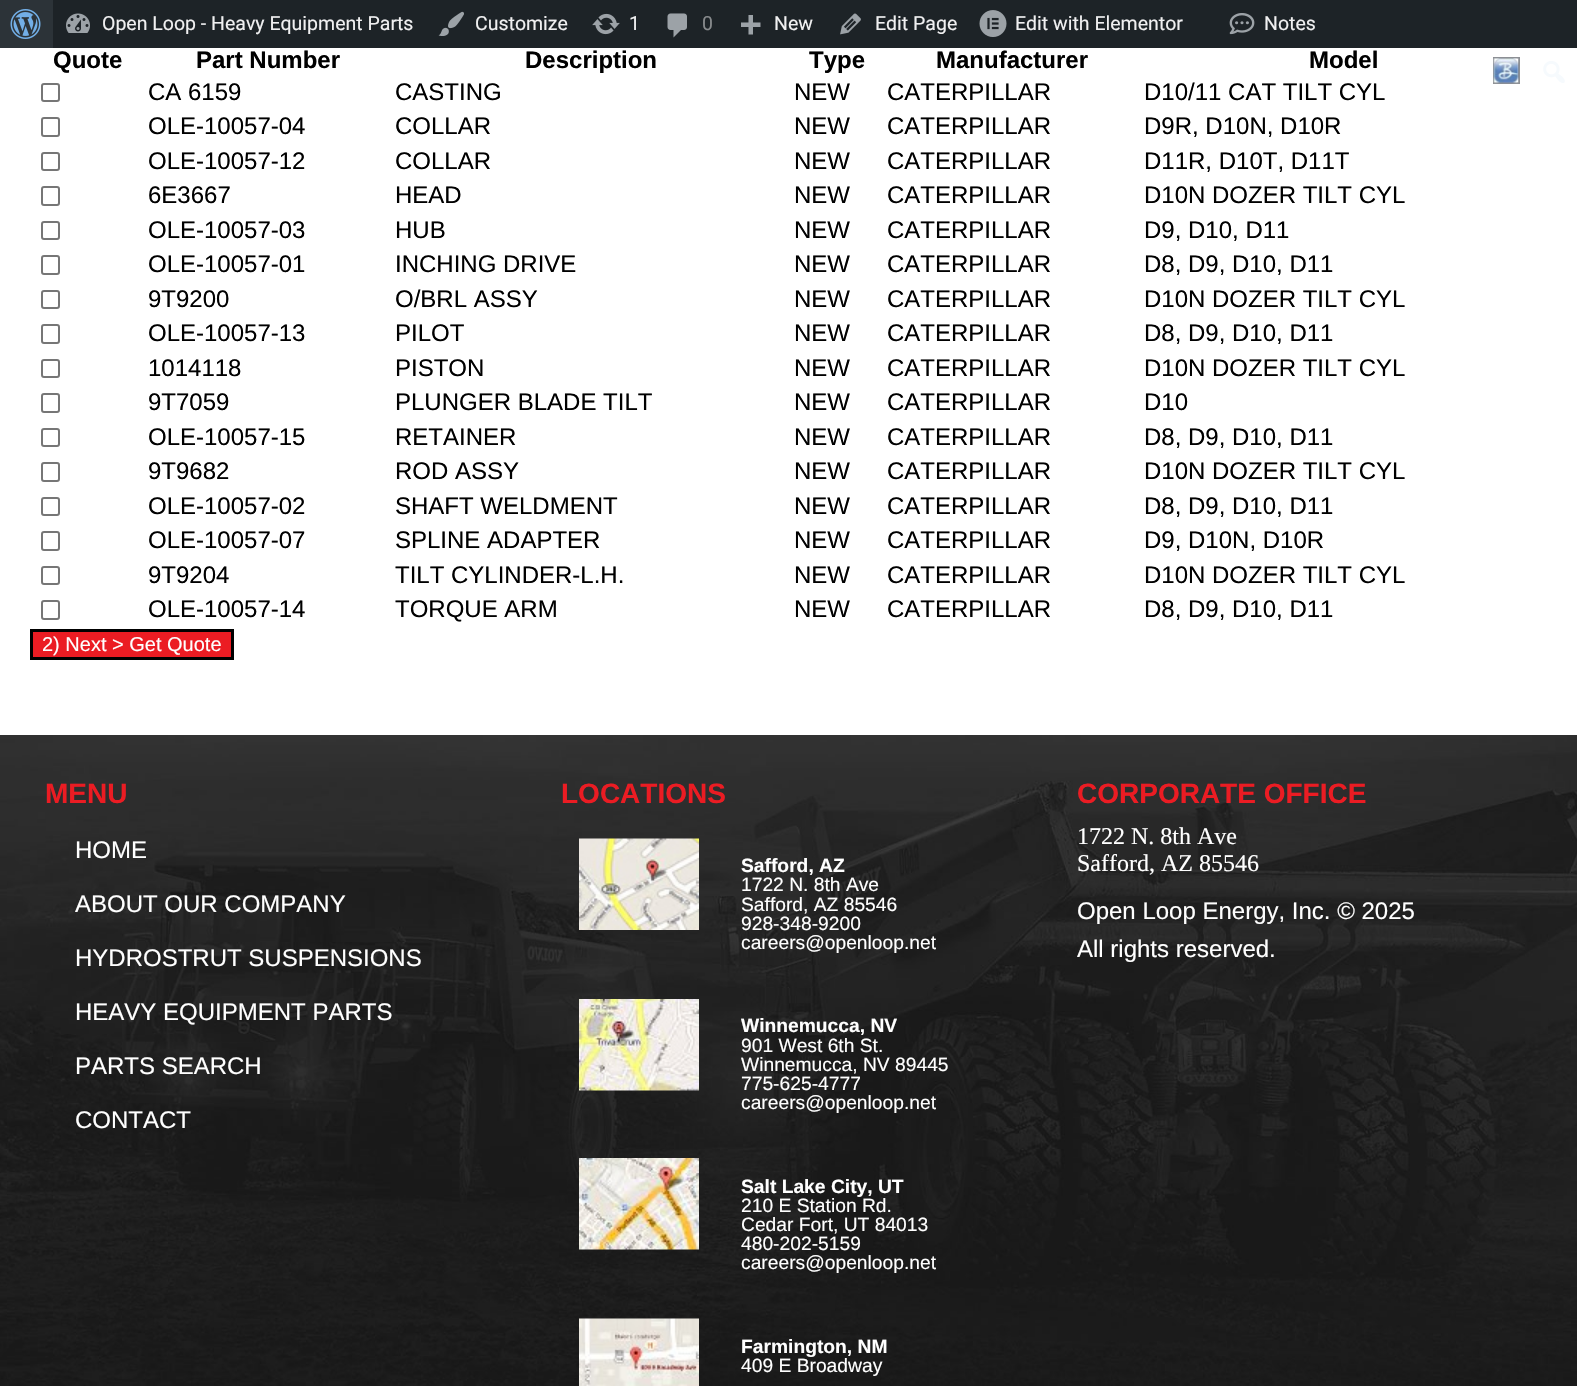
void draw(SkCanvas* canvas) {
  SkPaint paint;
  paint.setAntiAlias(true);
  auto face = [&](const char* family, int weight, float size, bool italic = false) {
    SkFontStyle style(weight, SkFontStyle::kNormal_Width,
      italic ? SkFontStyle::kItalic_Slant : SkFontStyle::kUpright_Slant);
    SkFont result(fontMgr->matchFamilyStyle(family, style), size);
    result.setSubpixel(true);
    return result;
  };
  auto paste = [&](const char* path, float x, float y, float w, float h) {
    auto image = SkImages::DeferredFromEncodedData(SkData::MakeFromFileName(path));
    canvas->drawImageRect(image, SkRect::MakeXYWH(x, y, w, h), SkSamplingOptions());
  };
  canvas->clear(0xffffffff);
  paint.setColor(0xff1d2327);
  canvas->drawRect(SkRect::MakeXYWH(53, 0, 1524, 48), paint);
  paint.setColor(0xff2c3338);
  canvas->drawRect(SkRect::MakeXYWH(0, 0, 53, 48), paint);
  paste("img/1.png", 10, 9, 31, 30);
  paste("img/2.png", 66, 13, 24, 20);
  paste("img/3.png", 438, 11, 26, 25);
  paste("img/4.png", 592, 13, 28, 22);
  paste("img/5.png", 667, 13, 20, 25);
  paste("img/6.png", 741, 15, 20, 20);
  paste("img/7.png", 840, 13, 21, 22);
  paste("img/8.png", 979, 10, 28, 27);
  paste("img/9.png", 1229, 13, 26, 22);
  paint.setStroke(true);
  paint.setStrokeWidth(2);
  paint.setColor(0xff8c8f94);
  canvas->drawRect(SkRect::MakeXYWH(1494, 58, 25, 25), paint);
  paste("img/10.png", 1493, 58, 26, 26);
  paste("img/11.png", 1543, 61, 22, 22);
  paint.setColor(0xff767676);
  canvas->drawRoundRect(SkRect::MakeXYWH(42, 84, 17, 17), 2, 2, paint);
  canvas->drawRoundRect(SkRect::MakeXYWH(42, 118, 17, 18), 2, 2, paint);
  canvas->drawRoundRect(SkRect::MakeXYWH(42, 153, 17, 17), 2, 2, paint);
  canvas->drawRoundRect(SkRect::MakeXYWH(42, 187, 17, 18), 2, 2, paint);
  canvas->drawRoundRect(SkRect::MakeXYWH(42, 222, 17, 17), 2, 2, paint);
  canvas->drawRoundRect(SkRect::MakeXYWH(42, 256, 17, 18), 2, 2, paint);
  canvas->drawRoundRect(SkRect::MakeXYWH(42, 291, 17, 17), 2, 2, paint);
  canvas->drawRoundRect(SkRect::MakeXYWH(42, 325, 17, 18), 2, 2, paint);
  canvas->drawRoundRect(SkRect::MakeXYWH(42, 360, 17, 17), 2, 2, paint);
  canvas->drawRoundRect(SkRect::MakeXYWH(42, 394, 17, 18), 2, 2, paint);
  canvas->drawRoundRect(SkRect::MakeXYWH(42, 429, 17, 17), 2, 2, paint);
  canvas->drawRoundRect(SkRect::MakeXYWH(42, 463, 17, 18), 2, 2, paint);
  canvas->drawRoundRect(SkRect::MakeXYWH(42, 498, 17, 17), 2, 2, paint);
  canvas->drawRoundRect(SkRect::MakeXYWH(42, 532, 17, 18), 2, 2, paint);
  canvas->drawRoundRect(SkRect::MakeXYWH(42, 567, 17, 17), 2, 2, paint);
  canvas->drawRoundRect(SkRect::MakeXYWH(42, 601, 17, 18), 2, 2, paint);
  paint.setStroke(false);
  paint.setColor(0xffeb1c23);
  canvas->drawRect(SkRect::MakeXYWH(31.5f, 630.5f, 201, 28), paint);
  paint.setStroke(true);
  paint.setStrokeWidth(3);
  paint.setColor(0xff000000);
  canvas->drawRect(SkRect::MakeXYWH(31.5f, 630.5f, 201, 28), paint);
  paste("img/12.png", 0, 735, 1577, 651);
  paste("img/13.png", 579, 838, 120, 92);
  paste("img/14.png", 579, 999, 120, 92);
  paste("img/15.png", 579, 1158, 120, 92);
  paste("img/16.png", 579, 1318, 120, 68);
  auto f0 = face("Roboto", 400, 19.5f);
  paint.setStroke(false);
  paint.setColor(0xfff0f0f1);
  {
    const struct { const char* s; float x, y; } items[] = {
      {"Open Loop - Heavy Equipment Parts", 102, 30},
      {"Customize", 475, 30},
      {"1", 629, 30},
    };
    for (auto [s, x, y] : items) {
      canvas->drawString(s, x, y, f0, paint);
    }
  }
  paint.setColor(0xff878a8c);
  canvas->drawString("0", 702, 30, f0, paint);
  paint.setColor(0xfff0f0f1);
  {
    const struct { const char* s; float x, y; } items[] = {
      {"New", 774, 30},
      {"Edit Page", 875, 30},
      {"Edit with Elementor", 1015, 30},
      {"Notes", 1264, 30},
    };
    for (auto [s, x, y] : items) {
      canvas->drawString(s, x, y, f0, paint);
    }
  }
  auto f1 = face("Liberation Sans", 700, 24);
  paint.setColor(0xff000000);
  {
    const struct { const char* s; float x, y; } items[] = {
      {"Quote", 53, 68},
      {"Part Number", 196, 68},
      {"Description", 525, 68},
      {"Type", 809, 68},
      {"Manufacturer", 936, 68},
      {"Model", 1309, 68},
    };
    for (auto [s, x, y] : items) {
      canvas->drawString(s, x, y, f1, paint);
    }
  }
  auto f2 = face("Liberation Sans", 400, 24);
  {
    const struct { const char* s; float x, y; } items[] = {
      {"CA 6159", 148, 100},
      {"CASTING", 395, 100},
      {"NEW", 794, 100},
      {"CATERPILLAR", 887, 100},
      {"D10/11 CAT TILT CYL", 1144, 100},
      {"OLE-10057-04", 148, 134},
      {"COLLAR", 395, 134},
      {"NEW", 794, 134},
      {"CATERPILLAR", 887, 134},
      {"D9R, D10N, D10R", 1144, 134},
      {"OLE-10057-12", 148, 169},
      {"COLLAR", 395, 169},
      {"NEW", 794, 169},
      {"CATERPILLAR", 887, 169},
      {"D11R, D10T, D11T", 1144, 169},
      {"6E3667", 148, 203},
      {"HEAD", 395, 203},
      {"NEW", 794, 203},
      {"CATERPILLAR", 887, 203},
      {"D10N DOZER TILT CYL", 1144, 203},
      {"OLE-10057-03", 148, 238},
      {"HUB", 395, 238},
      {"NEW", 794, 238},
      {"CATERPILLAR", 887, 238},
      {"D9, D10, D11", 1144, 238},
      {"OLE-10057-01", 148, 272},
      {"INCHING DRIVE", 395, 272},
      {"NEW", 794, 272},
      {"CATERPILLAR", 887, 272},
      {"D8, D9, D10, D11", 1144, 272},
      {"9T9200", 148, 307},
      {"O/BRL ASSY", 395, 307},
      {"NEW", 794, 307},
      {"CATERPILLAR", 887, 307},
      {"D10N DOZER TILT CYL", 1144, 307},
      {"OLE-10057-13", 148, 341},
      {"PILOT", 395, 341},
      {"NEW", 794, 341},
      {"CATERPILLAR", 887, 341},
      {"D8, D9, D10, D11", 1144, 341},
      {"1014118", 148, 376},
      {"PISTON", 395, 376},
      {"NEW", 794, 376},
      {"CATERPILLAR", 887, 376},
      {"D10N DOZER TILT CYL", 1144, 376},
      {"9T7059", 148, 410},
      {"PLUNGER BLADE TILT", 395, 410},
      {"NEW", 794, 410},
      {"CATERPILLAR", 887, 410},
      {"D10", 1144, 410},
      {"OLE-10057-15", 148, 445},
      {"RETAINER", 395, 445},
      {"NEW", 794, 445},
      {"CATERPILLAR", 887, 445},
      {"D8, D9, D10, D11", 1144, 445},
      {"9T9682", 148, 479},
      {"ROD ASSY", 395, 479},
      {"NEW", 794, 479},
      {"CATERPILLAR", 887, 479},
      {"D10N DOZER TILT CYL", 1144, 479},
      {"OLE-10057-02", 148, 514},
      {"SHAFT WELDMENT", 395, 514},
      {"NEW", 794, 514},
      {"CATERPILLAR", 887, 514},
      {"D8, D9, D10, D11", 1144, 514},
      {"OLE-10057-07", 148, 548},
      {"SPLINE ADAPTER", 395, 548},
      {"NEW", 794, 548},
      {"CATERPILLAR", 887, 548},
      {"D9, D10N, D10R", 1144, 548},
      {"9T9204", 148, 583},
      {"TILT CYLINDER-L.H.", 395, 583},
      {"NEW", 794, 583},
      {"CATERPILLAR", 887, 583},
      {"D10N DOZER TILT CYL", 1144, 583},
      {"OLE-10057-14", 148, 617},
      {"TORQUE ARM", 395, 617},
      {"NEW", 794, 617},
      {"CATERPILLAR", 887, 617},
      {"D8, D9, D10, D11", 1144, 617},
    };
    for (auto [s, x, y] : items) {
      canvas->drawString(s, x, y, f2, paint);
    }
  }
  auto f3 = face("Liberation Sans", 400, 20);
  paint.setColor(0xffffffff);
  canvas->drawString("2) Next > Get Quote", 42, 651, f3, paint);
  auto f4 = face("Liberation Sans", 700, 28);
  paint.setColor(0xffeb1c23);
  canvas->drawString("MENU", 45, 803, f4, paint);
  paint.setColor(0xffffffff);
  {
    const struct { const char* s; float x, y; } items[] = {
      {"HOME", 75, 858},
      {"ABOUT OUR COMPANY", 75, 912},
      {"HYDROSTRUT SUSPENSIONS", 75, 966},
      {"HEAVY EQUIPMENT PARTS", 75, 1020},
      {"PARTS SEARCH", 75, 1074},
      {"CONTACT", 75, 1128},
    };
    for (auto [s, x, y] : items) {
      canvas->drawString(s, x, y, f2, paint);
    }
  }
  paint.setColor(0xffeb1c23);
  canvas->drawString("LOCATIONS", 561, 803, f4, paint);
  auto f5 = face("Liberation Sans", 700, 19.25f);
  paint.setColor(0xffffffff);
  canvas->drawString("Safford, AZ", 741, 872, f5, paint);
  auto f6 = face("Liberation Sans", 400, 19.25f);
  {
    const struct { const char* s; float x, y; } items[] = {
      {"1722 N. 8th Ave", 741, 891},
      {"Safford, AZ 85546", 741, 911},
      {"928-348-9200", 741, 930},
      {"careers@openloop.net", 741, 949},
    };
    for (auto [s, x, y] : items) {
      canvas->drawString(s, x, y, f6, paint);
    }
  }
  canvas->drawString("Winnemucca, NV", 741, 1032, f5, paint);
  {
    const struct { const char* s; float x, y; } items[] = {
      {"901 West 6th St.", 741, 1052},
      {"Winnemucca, NV 89445", 741, 1071},
      {"775-625-4777", 741, 1090},
      {"careers@openloop.net", 741, 1109},
    };
    for (auto [s, x, y] : items) {
      canvas->drawString(s, x, y, f6, paint);
    }
  }
  canvas->drawString("Salt Lake City, UT", 741, 1193, f5, paint);
  {
    const struct { const char* s; float x, y; } items[] = {
      {"210 E Station Rd.", 741, 1212},
      {"Cedar Fort, UT 84013", 741, 1231},
      {"480-202-5159", 741, 1250},
      {"careers@openloop.net", 741, 1269},
    };
    for (auto [s, x, y] : items) {
      canvas->drawString(s, x, y, f6, paint);
    }
  }
  canvas->drawString("Farmington, NM", 741, 1353, f5, paint);
  canvas->drawString("409 E Broadway", 741, 1372, f6, paint);
  paint.setColor(0xffeb1c23);
  canvas->drawString("CORPORATE OFFICE", 1077, 803, f4, paint);
  auto f7 = face("Liberation Serif", 400, 24);
  paint.setColor(0xffffffff);
  canvas->drawString("1722 N. 8th Ave", 1077, 844, f7, paint);
  canvas->drawString("Safford, AZ 85546", 1077, 871, f7, paint);
  canvas->drawString("Open Loop Energy, Inc. © 2025", 1077, 919, f2, paint);
  canvas->drawString("All rights reserved.", 1077, 957, f2, paint);
}
